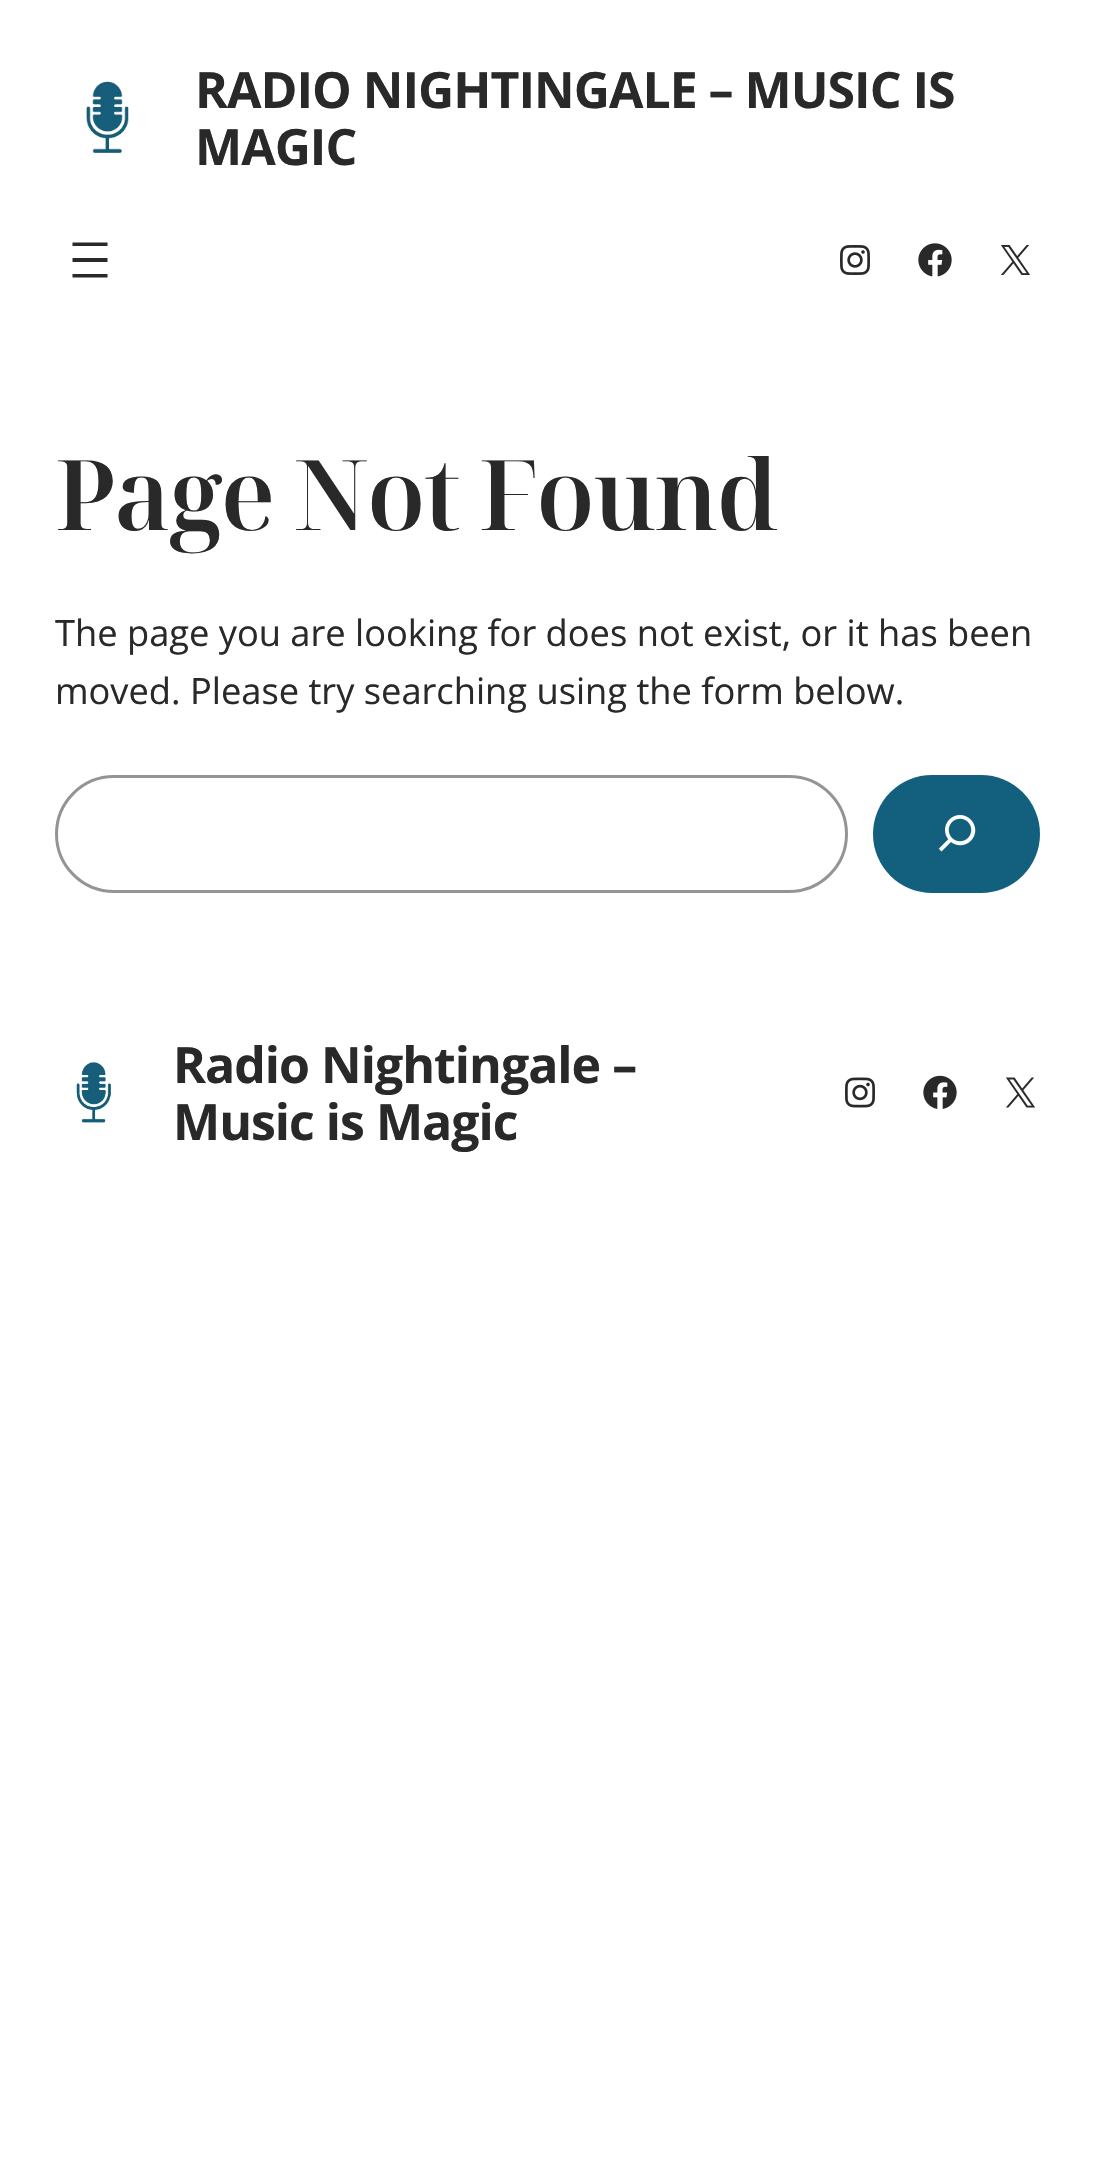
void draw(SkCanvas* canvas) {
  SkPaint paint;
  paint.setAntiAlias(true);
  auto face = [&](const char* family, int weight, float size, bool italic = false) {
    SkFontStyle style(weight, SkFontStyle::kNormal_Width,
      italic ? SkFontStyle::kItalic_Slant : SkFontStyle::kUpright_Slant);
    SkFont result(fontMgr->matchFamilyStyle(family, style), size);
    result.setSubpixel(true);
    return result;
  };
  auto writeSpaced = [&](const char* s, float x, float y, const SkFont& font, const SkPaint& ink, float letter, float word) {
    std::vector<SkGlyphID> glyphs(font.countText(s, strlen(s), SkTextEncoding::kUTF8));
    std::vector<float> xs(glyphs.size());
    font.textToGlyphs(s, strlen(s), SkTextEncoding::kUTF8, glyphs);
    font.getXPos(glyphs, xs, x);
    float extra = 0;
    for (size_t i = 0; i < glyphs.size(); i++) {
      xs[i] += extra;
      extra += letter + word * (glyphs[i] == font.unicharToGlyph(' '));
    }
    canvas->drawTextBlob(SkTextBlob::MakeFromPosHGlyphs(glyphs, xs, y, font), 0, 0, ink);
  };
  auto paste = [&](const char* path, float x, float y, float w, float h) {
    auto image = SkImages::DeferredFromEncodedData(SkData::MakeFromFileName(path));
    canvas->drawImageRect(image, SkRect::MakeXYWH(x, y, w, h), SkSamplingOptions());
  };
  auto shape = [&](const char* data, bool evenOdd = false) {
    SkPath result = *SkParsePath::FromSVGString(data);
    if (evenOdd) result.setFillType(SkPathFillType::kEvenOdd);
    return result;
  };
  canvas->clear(0xffffffff);
  paste("img/1.png", 86, 81, 43, 72);
  paint.setColor(0xff292929);
  canvas->drawPath(shape("M72.5 242.5V246H107.5V242.5ZM72.5 262H107.5V258H72.5ZM72.5 277.5H107.5V274H72.5Z"), paint);
  paste("img/2.png", 840, 245, 30, 30);
  paste("img/3.png", 918, 243, 34, 34);
  paste("img/4.png", 1001, 245, 30, 30);
  paint.setStroke(true);
  paint.setStrokeWidth(3);
  paint.setColor(0xff949494);
  canvas->drawRoundRect(SkRect::MakeXYWH(56.5f, 776.5f, 790, 115), 57.5f, 57.5f, paint);
  paint.setStroke(false);
  paint.setColor(0xff13607e);
  canvas->drawRoundRect(SkRect::MakeXYWH(873, 775, 167, 118), 59, 59, paint);
  paste("img/5.png", 938, 815, 38, 37);
  paste("img/6.png", 76, 1062, 35, 61);
  paste("img/7.png", 845, 1077, 30, 31);
  paste("img/8.png", 923, 1075, 34, 34);
  paste("img/9.png", 1005, 1077, 31, 31);
  auto f0 = face("Open Sans", 700, 50);
  paint.setColor(0xff292929);
  writeSpaced("RADIO NIGHTINGALE – MUSIC IS", 195, 108, f0, paint, -1, 0);
  writeSpaced("MAGIC", 195, 165, f0, paint, -1, 0);
  auto f1 = face("Noto Serif Display", 600, 97.5f);
  writeSpaced("Page Not Found", 55, 530, f1, paint, -2, 0);
  auto f2 = face("Open Sans", 400, 36.25f);
  canvas->drawString("The page you are looking for does not exist, or it has been", 55, 646, f2, paint);
  canvas->drawString("moved. Please try searching using the form below.", 55, 704, f2, paint);
  writeSpaced("Radio Nightingale –", 173, 1083, f0, paint, -1, 0);
  writeSpaced("Music is Magic", 173, 1140, f0, paint, -1, 0);
}
